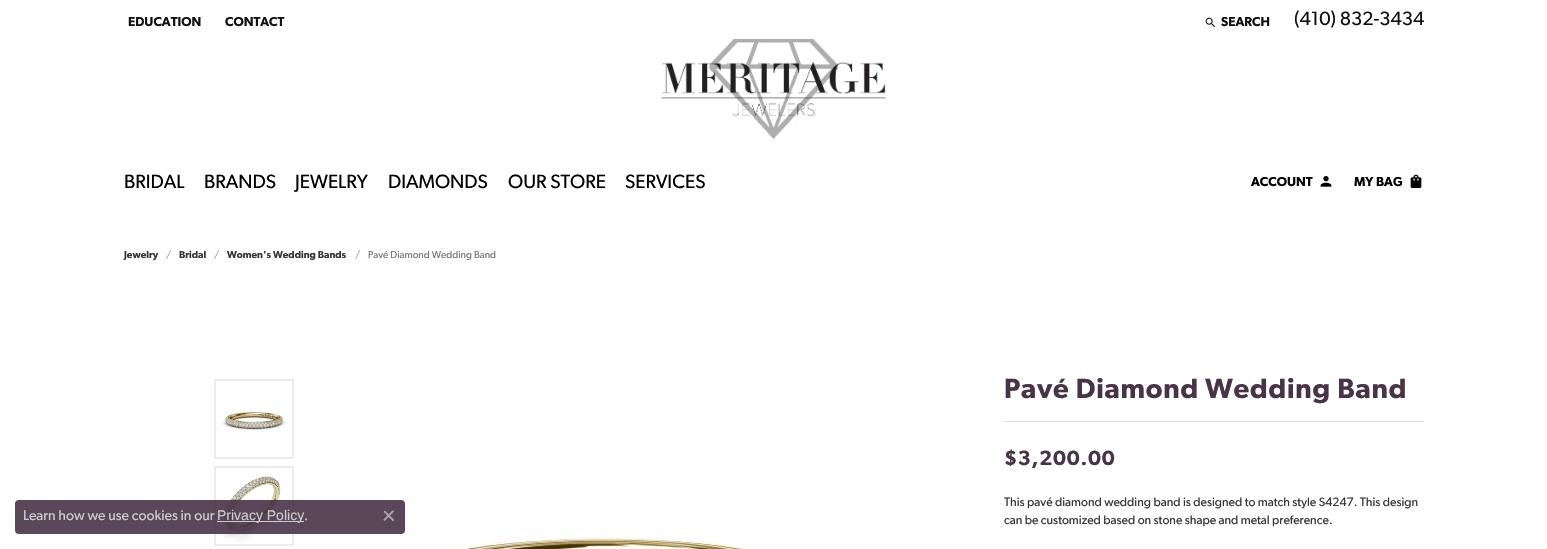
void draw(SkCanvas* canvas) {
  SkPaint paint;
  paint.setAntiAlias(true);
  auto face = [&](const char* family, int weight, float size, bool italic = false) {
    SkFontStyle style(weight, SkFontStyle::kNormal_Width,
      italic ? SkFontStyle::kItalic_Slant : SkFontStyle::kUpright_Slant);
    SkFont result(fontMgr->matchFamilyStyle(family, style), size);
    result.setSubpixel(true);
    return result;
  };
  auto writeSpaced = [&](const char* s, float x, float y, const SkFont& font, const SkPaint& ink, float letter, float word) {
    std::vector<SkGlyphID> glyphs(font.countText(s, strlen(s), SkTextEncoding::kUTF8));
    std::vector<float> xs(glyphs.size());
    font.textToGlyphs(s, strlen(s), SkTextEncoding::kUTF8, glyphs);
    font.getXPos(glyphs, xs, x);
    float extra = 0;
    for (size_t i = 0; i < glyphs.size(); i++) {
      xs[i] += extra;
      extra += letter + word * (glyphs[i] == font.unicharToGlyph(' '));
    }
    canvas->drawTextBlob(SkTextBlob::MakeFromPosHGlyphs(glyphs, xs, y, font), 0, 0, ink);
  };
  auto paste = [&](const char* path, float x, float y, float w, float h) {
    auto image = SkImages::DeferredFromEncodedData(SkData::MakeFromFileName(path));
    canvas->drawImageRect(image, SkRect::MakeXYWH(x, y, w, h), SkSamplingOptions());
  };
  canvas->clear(0xffffffff);
  paste("img/1.png", 1205, 17, 10, 11);
  paste("img/2.png", 661, 39, 225, 100);
  paste("img/3.png", 1320, 176, 12, 11);
  paste("img/4.png", 1410, 174, 12, 14);
  paint.setStroke(true);
  paint.setStrokeWidth(2);
  paint.setColor(0xffebebeb);
  canvas->drawRect(SkRect::MakeXYWH(215, 380, 78, 78), paint);
  paste("img/5.png", 222, 412, 64, 18);
  canvas->drawRect(SkRect::MakeXYWH(215, 467, 78, 78), paint);
  paste("img/6.png", 221, 476, 60, 67);
  paste("img/7.png", 457, 533, 291, 16);
  paint.setStroke(false);
  paint.setColor(0xffdfdfdf);
  canvas->drawRect(SkRect::MakeXYWH(1004, 421, 420, 1), paint);
  paint.setColor(0xe6483347);
  canvas->drawRoundRect(SkRect::MakeXYWH(15, 500, 390, 34), 4, 4, paint);
  paint.setColor(0xffcccccc);
  canvas->drawRect(SkRect::MakeXYWH(217, 521, 87, 1), paint);
  paste("img/8.png", 383, 510, 12, 12);
  auto f0 = face("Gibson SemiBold", 600, 13);
  paint.setColor(0xff111111);
  {
    const struct { const char* s; float x, y; } items[] = {
      {"EDUCATION", 128, 26},
      {"CONTACT", 225, 26},
      {"SEARCH", 1221, 26},
    };
    for (auto [s, x, y] : items) {
      canvas->drawString(s, x, y, f0, paint);
    }
  }
  auto f1 = face("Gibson", 400, 19.25f);
  canvas->drawString("(410) 832-3434", 1294, 25, f1, paint);
  paint.setColor(0xff000000);
  {
    const struct { const char* s; float x, y; } items[] = {
      {"BRIDAL", 124, 188},
      {"BRANDS", 204, 188},
      {"JEWELRY", 295, 188},
      {"DIAMONDS", 388, 188},
      {"OUR STORE", 508, 188},
      {"SERVICES", 625, 188},
    };
    for (auto [s, x, y] : items) {
      canvas->drawString(s, x, y, f1, paint);
    }
  }
  canvas->drawString("ACCOUNT", 1251, 186, f0, paint);
  canvas->drawString("MY BAG", 1354, 186, f0, paint);
  auto f2 = face("Gibson SemiBold", 600, 10);
  paint.setColor(0xff353535);
  canvas->drawString("Jewelry", 124, 258, f2, paint);
  auto f3 = face("Gibson", 400, 10);
  paint.setColor(0xffa6a5a5);
  canvas->drawString("/", 166, 258, f3, paint);
  paint.setColor(0xff353535);
  canvas->drawString("Bridal", 179, 258, f2, paint);
  paint.setColor(0xffa6a5a5);
  canvas->drawString("/", 214, 258, f3, paint);
  paint.setColor(0xff353535);
  canvas->drawString("Women's Wedding Bands", 227, 258, f2, paint);
  paint.setColor(0xffa6a5a5);
  canvas->drawString("/", 355, 258, f3, paint);
  paint.setColor(0xff757575);
  canvas->drawString("Pavé Diamond Wedding Band", 368, 258, f3, paint);
  auto f4 = face("Gibson SemiBold", 600, 28);
  paint.setColor(0xff483347);
  writeSpaced("Pavé Diamond Wedding Band", 1004, 398, f4, paint, 0.8f, 0);
  auto f5 = face("Gibson SemiBold", 600, 20.75f);
  writeSpaced("$3,200.00", 1004, 465, f5, paint, 0.8f, 0);
  auto f6 = face("Gibson", 400, 12.15f);
  paint.setColor(0xff353535);
  canvas->drawString("This pavé diamond wedding band is designed to match style S4247. This design", 1004, 506, f6, paint);
  canvas->drawString("can be customized based on stone shape and metal preference.", 1004, 524, f6, paint);
  auto f7 = face("Gibson", 400, 14);
  paint.setColor(0xffcccccc);
  canvas->drawString("Learn how we use cookies in our", 23, 520, f7, paint);
  auto f8 = face("Liberation Sans", 400, 14);
  canvas->drawString("Privacy Policy", 217, 520, f8, paint);
  canvas->drawString(".", 304, 520, f7, paint);
}
